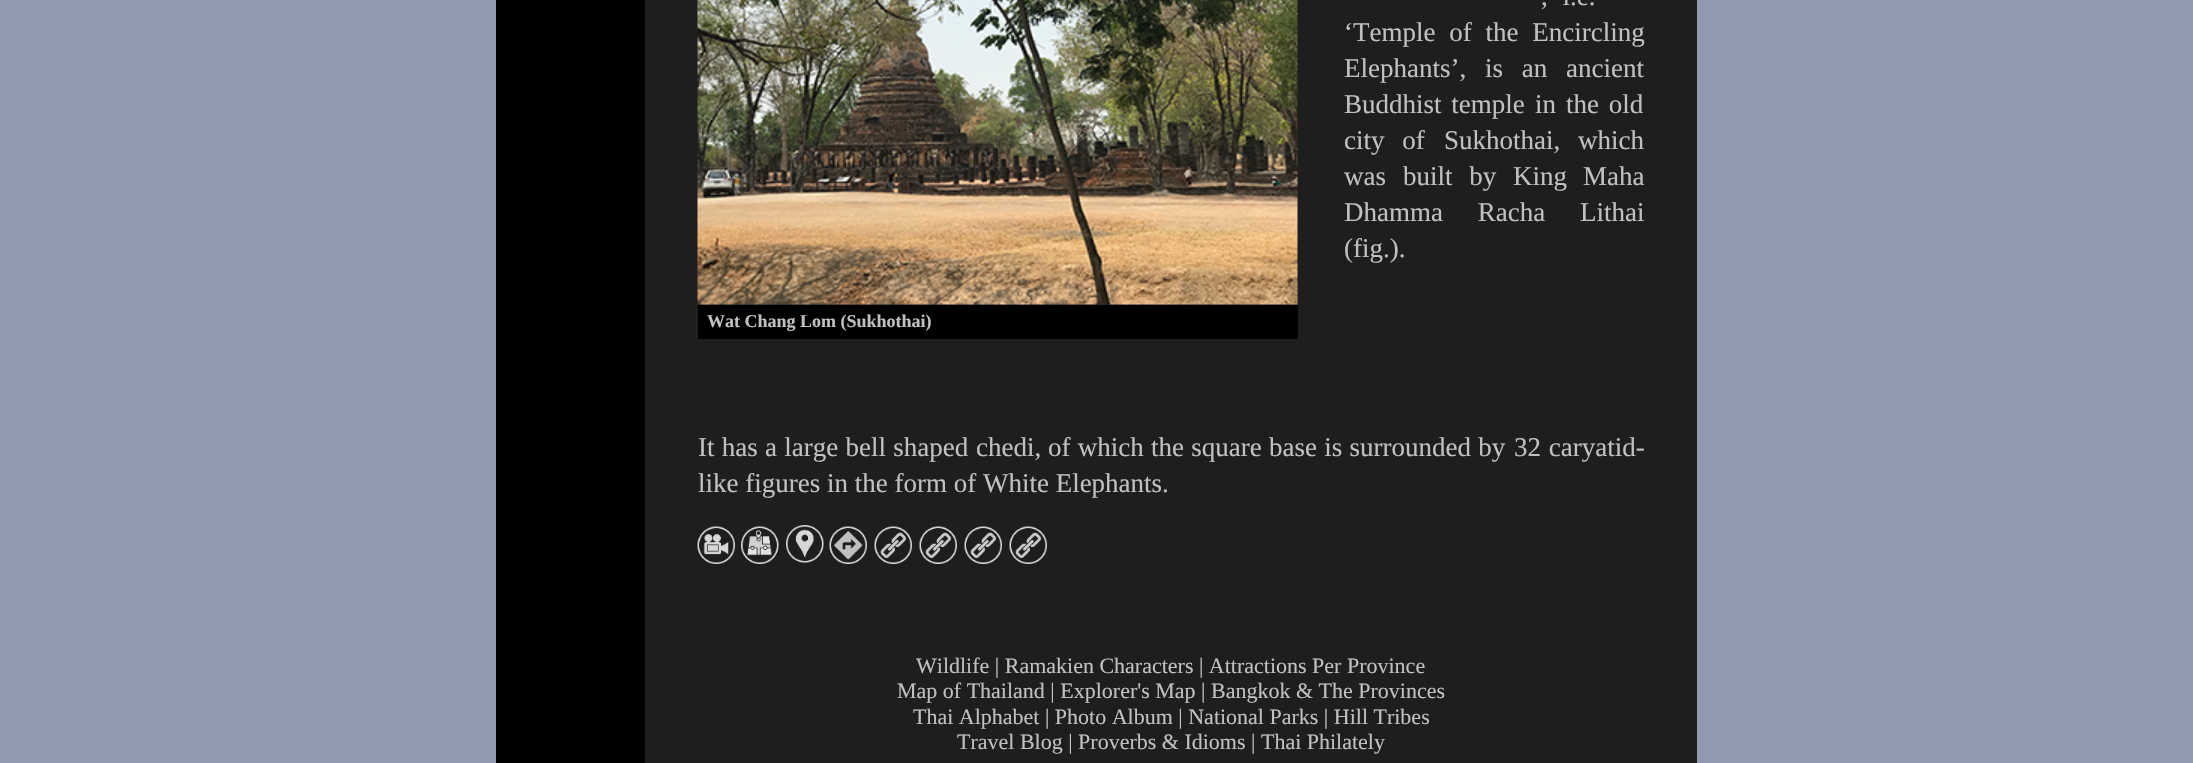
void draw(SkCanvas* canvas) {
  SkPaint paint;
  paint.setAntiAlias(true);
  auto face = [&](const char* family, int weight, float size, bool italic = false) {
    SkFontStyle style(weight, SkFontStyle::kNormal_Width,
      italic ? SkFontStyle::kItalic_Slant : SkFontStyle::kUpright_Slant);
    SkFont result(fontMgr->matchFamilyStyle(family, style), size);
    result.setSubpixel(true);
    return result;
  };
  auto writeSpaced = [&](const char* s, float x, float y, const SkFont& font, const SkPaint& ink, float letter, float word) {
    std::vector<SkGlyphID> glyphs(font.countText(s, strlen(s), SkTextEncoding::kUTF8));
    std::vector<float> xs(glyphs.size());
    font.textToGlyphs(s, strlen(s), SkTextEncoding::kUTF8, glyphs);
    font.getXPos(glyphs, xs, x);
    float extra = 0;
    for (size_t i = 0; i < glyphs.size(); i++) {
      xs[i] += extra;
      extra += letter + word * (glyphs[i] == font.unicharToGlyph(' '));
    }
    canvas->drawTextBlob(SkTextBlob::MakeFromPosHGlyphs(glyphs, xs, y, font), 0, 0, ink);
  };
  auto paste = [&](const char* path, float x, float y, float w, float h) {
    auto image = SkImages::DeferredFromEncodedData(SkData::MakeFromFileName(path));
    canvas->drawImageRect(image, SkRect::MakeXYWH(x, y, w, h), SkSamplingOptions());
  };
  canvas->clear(0xff9199ae);
  paint.setColor(0xff000000);
  canvas->drawRect(SkRect::MakeXYWH(496, 0, 149, 763), paint);
  paint.setColor(0xff1e1e1e);
  canvas->drawRect(SkRect::MakeXYWH(645, 0, 1052, 763), paint);
  paste("img/1.png", 697, 0, 601, 305);
  paint.setColor(0xff000000);
  canvas->drawRect(SkRect::MakeXYWH(698, 305, 600, 34), paint);
  paste("img/2.png", 697, 526, 38, 38);
  paste("img/3.png", 741, 526, 38, 38);
  paste("img/4.png", 786, 525, 38, 38);
  paste("img/5.png", 829, 526, 38, 38);
  paste("img/6.png", 874, 526, 38, 38);
  paste("img/6.png", 919, 526, 38, 38);
  paste("img/6.png", 964, 526, 38, 38);
  paste("img/6.png", 1009, 526, 38, 38);
  auto f0 = face("Liberation Serif", 400, 27);
  paint.setColor(0xffc0c0c0);
  writeSpaced(", i.e.", 1541, 5, f0, paint, 0, 8);
  writeSpaced("‘Temple of the Encircling", 1344, 41, f0, paint, 0, 7);
  writeSpaced("Elephants’, is an ancient", 1344, 77, f0, paint, 0, 12);
  writeSpaced("Buddhist temple", 1344, 113, f0, paint, 0, 3);
  canvas->drawString("in", 1535, 113, f0, paint);
  writeSpaced("the old", 1566, 113, f0, paint, 0, 3);
  writeSpaced("city of", 1344, 149, f0, paint, 0, 11);
  {
    const struct { const char* s; float x, y; } items[] = {
      {"Sukhothai,", 1444, 149},
      {"which", 1578, 149},
      {"was", 1344, 185},
    };
    for (auto [s, x, y] : items) {
      canvas->drawString(s, x, y, f0, paint);
    }
  }
  writeSpaced("built by King", 1403, 185, f0, paint, 0, 10);
  canvas->drawString("Maha", 1583, 185, f0, paint);
  writeSpaced("Dhamma Racha Lithai", 1344, 221, f0, paint, 0, 28);
  canvas->drawString("(fig.).", 1344, 257, f0, paint);
  auto f1 = face("Liberation Serif", 700, 18);
  canvas->drawString("Wat Chang Lom (Sukhothai)", 707, 327, f1, paint);
  writeSpaced("It has a large bell shaped", 698, 456, f0, paint, 0, 0.5f);
  canvas->drawString("chedi,", 976, 456, f0, paint);
  writeSpaced("of which the square base is surrounded by", 1048, 456, f0, paint, 0, 0.5f);
  writeSpaced("32 caryatid-", 1514, 456, f0, paint, 0, 1);
  canvas->drawString("like figures in the form of White Elephants.", 698, 492, f0, paint);
  auto f2 = face("Liberation Serif", 400, 22);
  {
    const struct { const char* s; float x, y; } items[] = {
      {"Wildlife | Ramakien Characters | Attractions Per Province", 916, 673},
      {"Map of Thailand | Explorer's Map | Bangkok & The Provinces", 897, 698},
      {"Thai Alphabet | Photo Album | National Parks | Hill Tribes", 913, 724},
      {"Travel Blog | Proverbs & Idioms | Thai Philately", 957, 749},
    };
    for (auto [s, x, y] : items) {
      canvas->drawString(s, x, y, f2, paint);
    }
  }
}
